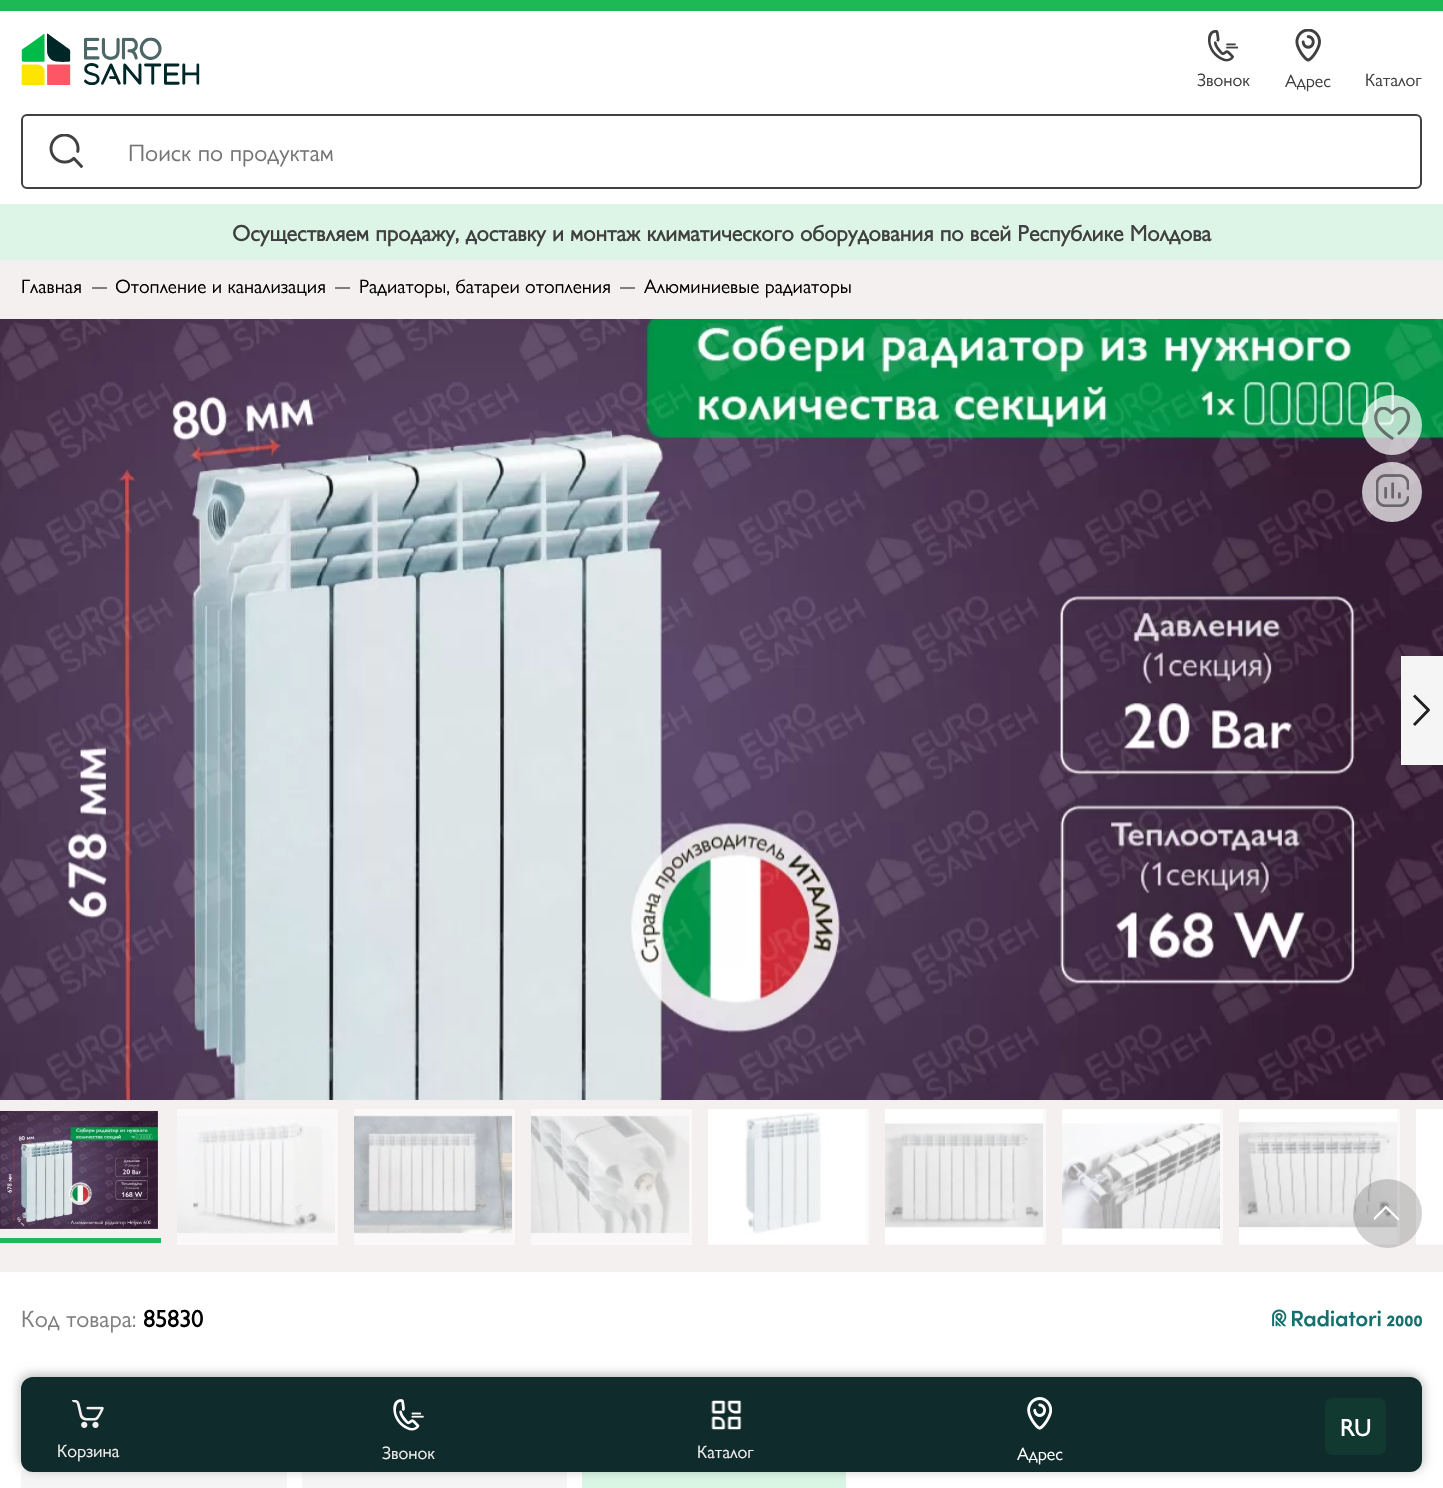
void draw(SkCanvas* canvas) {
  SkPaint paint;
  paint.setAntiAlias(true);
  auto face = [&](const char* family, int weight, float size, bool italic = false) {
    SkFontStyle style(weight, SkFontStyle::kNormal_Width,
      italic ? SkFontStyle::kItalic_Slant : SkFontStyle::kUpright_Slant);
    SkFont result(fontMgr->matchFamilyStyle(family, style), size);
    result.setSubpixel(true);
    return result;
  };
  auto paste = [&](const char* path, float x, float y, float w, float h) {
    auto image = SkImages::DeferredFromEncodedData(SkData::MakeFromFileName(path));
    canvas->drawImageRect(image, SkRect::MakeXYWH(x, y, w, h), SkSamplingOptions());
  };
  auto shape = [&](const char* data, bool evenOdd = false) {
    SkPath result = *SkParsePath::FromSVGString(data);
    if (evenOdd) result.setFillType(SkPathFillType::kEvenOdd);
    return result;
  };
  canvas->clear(0xffffffff);
  paint.setColor(0xff1db954);
  canvas->drawRect(SkRect::MakeXYWH(0, 0, 1443, 11), paint);
  paste("img/1.png", 21, 33, 179, 53);
  paste("img/2.png", 1208, 30, 30, 32);
  paste("img/3.png", 1295, 29, 26, 33);
  paint.setStroke(true);
  paint.setStrokeWidth(2);
  paint.setColor(0xff404040);
  canvas->drawRoundRect(SkRect::MakeXYWH(22, 115, 1399, 73), 5, 5, paint);
  paste("img/4.png", 49, 134, 34, 34);
  paint.setStroke(false);
  {
    const struct { float x, y, w, h; SkColor color; } items[] = {
      {0, 204, 1443, 56, 0xffddf5e6},
      {0, 260, 1443, 1012, 0xfff4f0f0},
      {1416, 1244, 27, 1, 0xfffaf8f8},
      {1239, 1109, 161, 136, 0xfffaf8f8},
      {1062, 1109, 161, 136, 0xfffaf8f8},
      {885, 1109, 161, 136, 0xfffaf8f8},
      {708, 1109, 161, 136, 0xfffaf8f8},
      {531, 1109, 161, 136, 0xfffaf8f8},
      {354, 1109, 161, 136, 0xfffaf8f8},
      {177, 1109, 161, 136, 0xfffaf8f8},
      {92, 287, 15, 2, 0xff7f7f7f},
      {335, 287, 15, 2, 0xff7f7f7f},
      {620, 287, 15, 2, 0xff7f7f7f},
    };
    for (auto [x, y, w, h, color] : items) {
      paint.setColor(color);
      canvas->drawRect(SkRect::MakeXYWH(x, y, w, h), paint);
    }
  }
  paste("img/5.png", 0, 319, 1443, 781);
  paint.setColor(0xfff5f5f6);
  canvas->drawRect(SkRect::MakeXYWH(1401, 656, 42, 109), paint);
  paint.setStroke(true);
  paint.setStrokeWidth(2.9f);
  paint.setStrokeCap(SkPaint::kSquare_Cap);
  paint.setStrokeJoin(SkPaint::kRound_Join);
  paint.setColor(0xff202020);
  canvas->drawPath(shape("M1415 724L1428.5 710L1415 696.5"), paint);
  paint.setStroke(false);
  paint.setColor(0xb3ffffff);
  canvas->drawCircle(1392, 425, 30, paint);
  paste("img/6.png", 1374, 407, 37, 33);
  canvas->drawCircle(1392, 492, 30, paint);
  paste("img/7.png", 1376, 474, 33, 33);
  paint.setColor(0xff1db954);
  canvas->drawRect(SkRect::MakeXYWH(0, 1238, 161, 5), paint);
  paste("img/8.png", 0, 1110, 158, 119);
  paste("img/9.png", 177, 1116, 158, 118);
  paste("img/10.png", 354, 1115, 158, 119);
  paste("img/11.png", 531, 1115, 158, 119);
  paste("img/12.png", 708, 1109, 158, 135);
  paste("img/13.png", 885, 1109, 158, 135);
  paste("img/14.png", 1062, 1109, 158, 135);
  paste("img/15.png", 1239, 1109, 158, 135);
  paint.setColor(0xffffffff);
  canvas->drawRect(SkRect::MakeXYWH(1416, 1109, 27, 135), paint);
  paste("img/16.png", 1272, 1309, 150, 18);
  paint.setColor(0xfff5f5f6);
  canvas->drawPath(shape("M24 1470H284C285.5 1470 287 1471.5 287 1473V1488H21V1473C21 1471.5 22.5 1470 24 1470Z"), paint);
  canvas->drawPath(shape("M305 1470H564C565.5 1470 567 1471.5 567 1473V1488H302V1473C302 1471.5 303.5 1470 305 1470Z"), paint);
  paint.setColor(0xffd9f5e4);
  canvas->drawPath(shape("M585 1470H843C844.5 1470 846 1471.5 846 1473V1488H582V1473C582 1471.5 583.5 1470 585 1470Z"), paint);
  paint.setColor(0x33202020);
  canvas->drawCircle(1387.5f, 1213.5f, 34.5f, paint);
  canvas->save();
  canvas->clipRect(SkRect::MakeXYWH(1374, 1206, 29, 17));
  paint.setStroke(true);
  paint.setStrokeWidth(2.2f);
  paint.setColor(0xffffffff);
  canvas->drawPath(shape("M1398 1219L1386 1207L1374 1219"), paint);
  canvas->restore();
  paint.setStroke(false);
  paint.setColor(0x26000000);
  paint.setMaskFilter(SkMaskFilter::MakeBlur(kNormal_SkBlurStyle, 5));
  canvas->drawRoundRect(SkRect::MakeXYWH(24, 1377, 1401, 95), 12, 12, paint);
  paint.setMaskFilter(nullptr);
  paint.setMaskFilter(SkMaskFilter::MakeBlur(kNormal_SkBlurStyle, 5));
  canvas->drawRoundRect(SkRect::MakeXYWH(18, 1373, 1401, 94), 12, 12, paint);
  paint.setMaskFilter(nullptr);
  paint.setColor(0xff102b2b);
  canvas->drawRoundRect(SkRect::MakeXYWH(21, 1377, 1401, 95), 12, 12, paint);
  paint.setColor(0xff11392f);
  canvas->drawRoundRect(SkRect::MakeXYWH(1325, 1398, 61, 57), 8, 8, paint);
  paste("img/17.png", 72, 1400, 32, 28);
  paste("img/18.png", 393, 1399, 31, 32);
  paste("img/19.png", 711, 1400, 31, 30);
  paste("img/20.png", 1027, 1397, 25, 33);
  auto f0 = face("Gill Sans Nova", 400, 18);
  paint.setColor(0xff404040);
  {
    const struct { const char* s; float x, y; } items[] = {
      {"Звонок", 1197, 86},
      {"Адрес", 1285, 87},
      {"Каталог", 1365, 86},
    };
    for (auto [s, x, y] : items) {
      canvas->drawString(s, x, y, f0, paint);
    }
  }
  auto f1 = face("Gill Sans Nova", 400, 24);
  paint.setColor(0xff757575);
  canvas->drawString("Поиск по продуктам", 128, 161, f1, paint);
  auto f2 = face("Gill Sans Nova", 700, 22.5f);
  paint.setColor(0xff404040);
  canvas->drawString("Осуществляем продажу, доставку и монтаж климатического оборудования по всей Республике Молдова", 232, 241, f2, paint);
  auto f3 = face("Gill Sans Nova", 400, 19.5f);
  paint.setColor(0xff000000);
  {
    const struct { const char* s; float x, y; } items[] = {
      {"Главная", 21, 293},
      {"Отопление и канализация", 115, 293},
      {"Радиаторы, батареи отопления", 359, 293},
      {"Алюминиевые радиаторы", 644, 293},
    };
    for (auto [s, x, y] : items) {
      canvas->drawString(s, x, y, f3, paint);
    }
  }
  paint.setColor(0xff7f7f7f);
  canvas->drawString("Код товара:", 21, 1327, f1, paint);
  auto f4 = face("Gill Sans Nova", 700, 24);
  paint.setColor(0xff000000);
  canvas->drawString("85830", 143, 1327, f4, paint);
  paint.setColor(0xffffffff);
  canvas->drawString("RU", 1340, 1436, f4, paint);
  paint.setColor(0xfff4f0f0);
  {
    const struct { const char* s; float x, y; } items[] = {
      {"Корзина", 57, 1457},
      {"Звонок", 382, 1459},
      {"Каталог", 697, 1458},
    };
    for (auto [s, x, y] : items) {
      canvas->drawString(s, x, y, f0, paint);
    }
  }
  paint.setColor(0xffffffff);
  canvas->drawString("Адрес", 1017, 1460, f0, paint);
}
